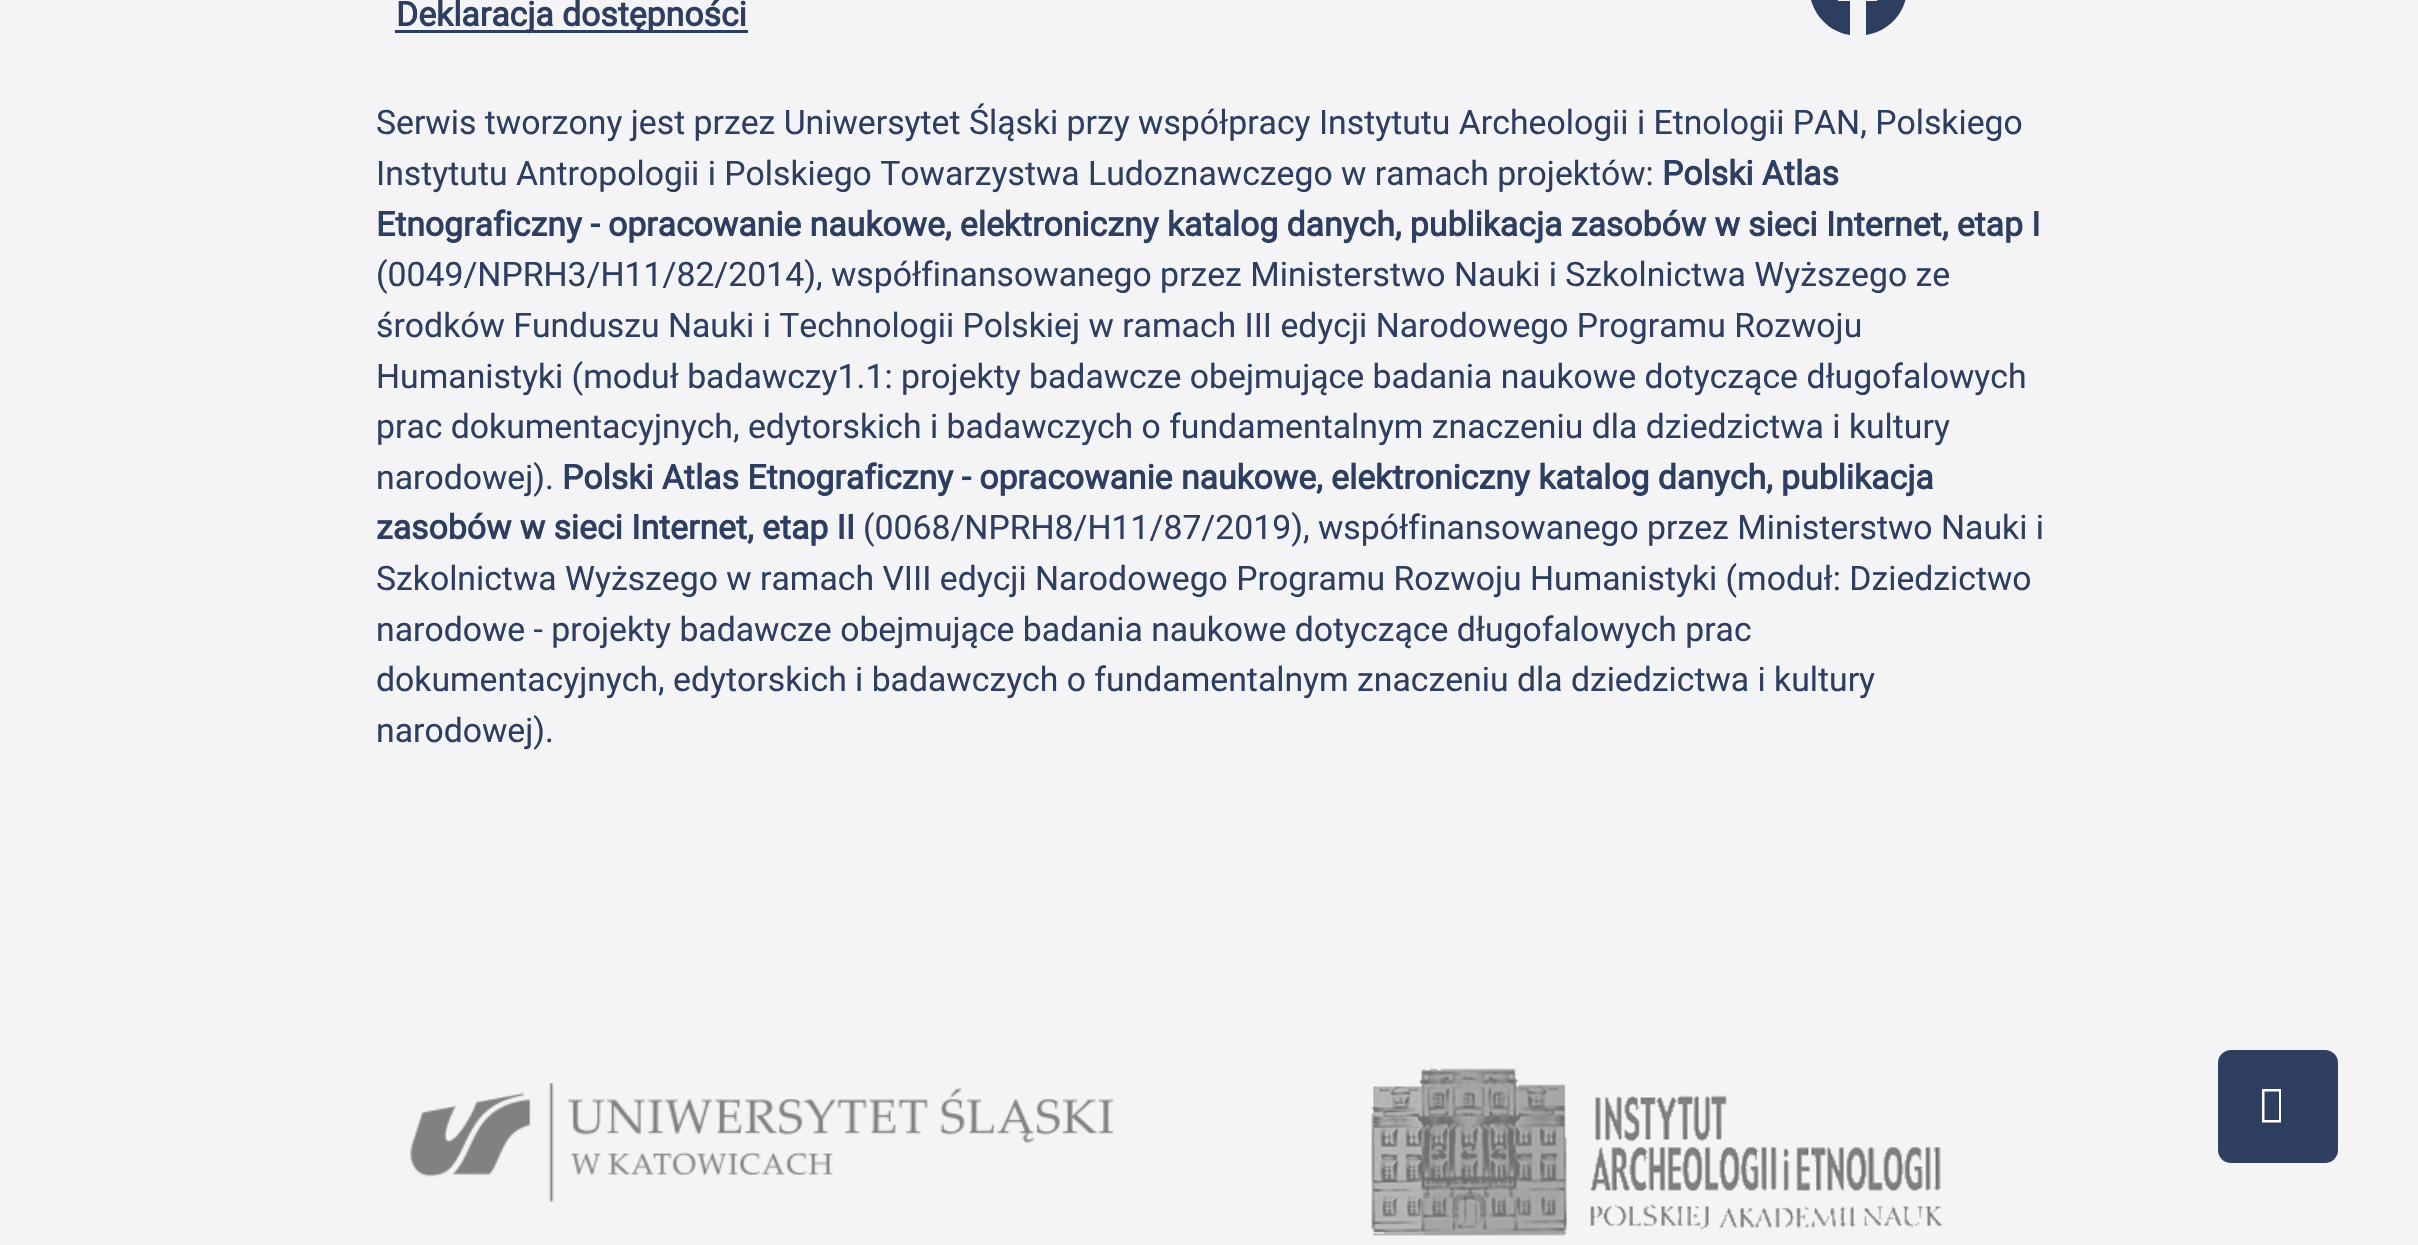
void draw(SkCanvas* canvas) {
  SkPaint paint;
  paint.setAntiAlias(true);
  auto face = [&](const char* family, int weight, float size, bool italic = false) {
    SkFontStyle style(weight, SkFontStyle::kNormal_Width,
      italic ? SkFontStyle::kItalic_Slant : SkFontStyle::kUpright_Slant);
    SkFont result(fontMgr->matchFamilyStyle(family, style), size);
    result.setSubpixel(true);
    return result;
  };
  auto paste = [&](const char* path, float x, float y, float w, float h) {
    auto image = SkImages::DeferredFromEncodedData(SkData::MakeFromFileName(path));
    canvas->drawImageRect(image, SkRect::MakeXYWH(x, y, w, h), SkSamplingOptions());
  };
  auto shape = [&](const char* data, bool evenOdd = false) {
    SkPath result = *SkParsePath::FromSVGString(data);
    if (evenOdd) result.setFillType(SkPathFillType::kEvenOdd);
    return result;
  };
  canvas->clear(0xfff4f4f6);
  paint.setColor(0xff2d3e61);
  canvas->drawRect(SkRect::MakeXYWH(395, 30, 353, 3), paint);
  canvas->drawPath(shape("M1907-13C1907-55 1858-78 1826-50C1819-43 1813-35 1811-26C1808-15 1809-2 1814 8C1821 23 1835 33 1850 35V1H1838V-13H1850C1850-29 1850-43 1871-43L1880-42V-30C1864-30 1866-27 1866-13H1879L1877 1H1866V35C1890 31 1907 12 1907-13Z"), paint);
  paste("img/1.png", 410, 1083, 704, 119);
  paste("img/2.png", 1371, 1068, 572, 168);
  paint.setColor(0xff2e3f62);
  canvas->drawRoundRect(SkRect::MakeXYWH(2219.5f, 1051.5f, 117, 110), 11.5f, 11.5f, paint);
  paint.setStroke(true);
  paint.setStrokeWidth(3);
  canvas->drawRoundRect(SkRect::MakeXYWH(2219.5f, 1051.5f, 117, 110), 11.5f, 11.5f, paint);
  paint.setStroke(false);
  paint.setColor(0xffffffff);
  canvas->drawPath(shape("M2262 1122.5V1089H2281V1122.5ZM2264.5 1120H2279V1091.5H2264.5Z"), paint);
  auto f0 = face("Roboto", 700, 33.75f);
  paint.setColor(0xff2d3e61);
  canvas->drawString("Deklaracja dostępności", 396, 26, f0, paint);
  auto f1 = face("Roboto", 400, 33.75f);
  canvas->drawString("Serwis tworzony jest przez Uniwersytet Śląski przy współpracy Instytutu Archeologii i Etnologii PAN, Polskiego", 376, 134, f1, paint);
  canvas->drawString("Instytutu Antropologii i Polskiego Towarzystwa Ludoznawczego w ramach projektów:", 376, 185, f1, paint);
  canvas->drawString("Polski Atlas", 1662, 185, f0, paint);
  canvas->drawString("Etnograficzny - opracowanie naukowe, elektroniczny katalog danych, publikacja zasobów w sieci Internet, etap I", 376, 236, f0, paint);
  {
    const struct { const char* s; float x, y; } items[] = {
      {"(0049/NPRH3/H11/82/2014), współfinansowanego przez Ministerstwo Nauki i Szkolnictwa Wyższego ze", 376, 286},
      {"środków Funduszu Nauki i Technologii Polskiej w ramach III edycji Narodowego Programu Rozwoju", 376, 337},
      {"Humanistyki (moduł badawczy1.1: projekty badawcze obejmujące badania naukowe dotyczące długofalowych", 376, 388},
      {"prac dokumentacyjnych, edytorskich i badawczych o fundamentalnym znaczeniu dla dziedzictwa i kultury", 376, 438},
      {"narodowej).", 376, 489},
    };
    for (auto [s, x, y] : items) {
      canvas->drawString(s, x, y, f1, paint);
    }
  }
  canvas->drawString("Polski Atlas Etnograficzny - opracowanie naukowe, elektroniczny katalog danych, publikacja", 562, 489, f0, paint);
  canvas->drawString("zasobów w sieci Internet, etap II", 376, 539, f0, paint);
  {
    const struct { const char* s; float x, y; } items[] = {
      {"(0068/NPRH8/H11/87/2019), współfinansowanego przez Ministerstwo Nauki i", 863, 539},
      {"Szkolnictwa Wyższego w ramach VIII edycji Narodowego Programu Rozwoju Humanistyki (moduł: Dziedzictwo", 376, 590},
      {"narodowe - projekty badawcze obejmujące badania naukowe dotyczące długofalowych prac", 376, 641},
      {"dokumentacyjnych, edytorskich i badawczych o fundamentalnym znaczeniu dla dziedzictwa i kultury", 376, 691},
      {"narodowej).", 376, 742},
    };
    for (auto [s, x, y] : items) {
      canvas->drawString(s, x, y, f1, paint);
    }
  }
}
